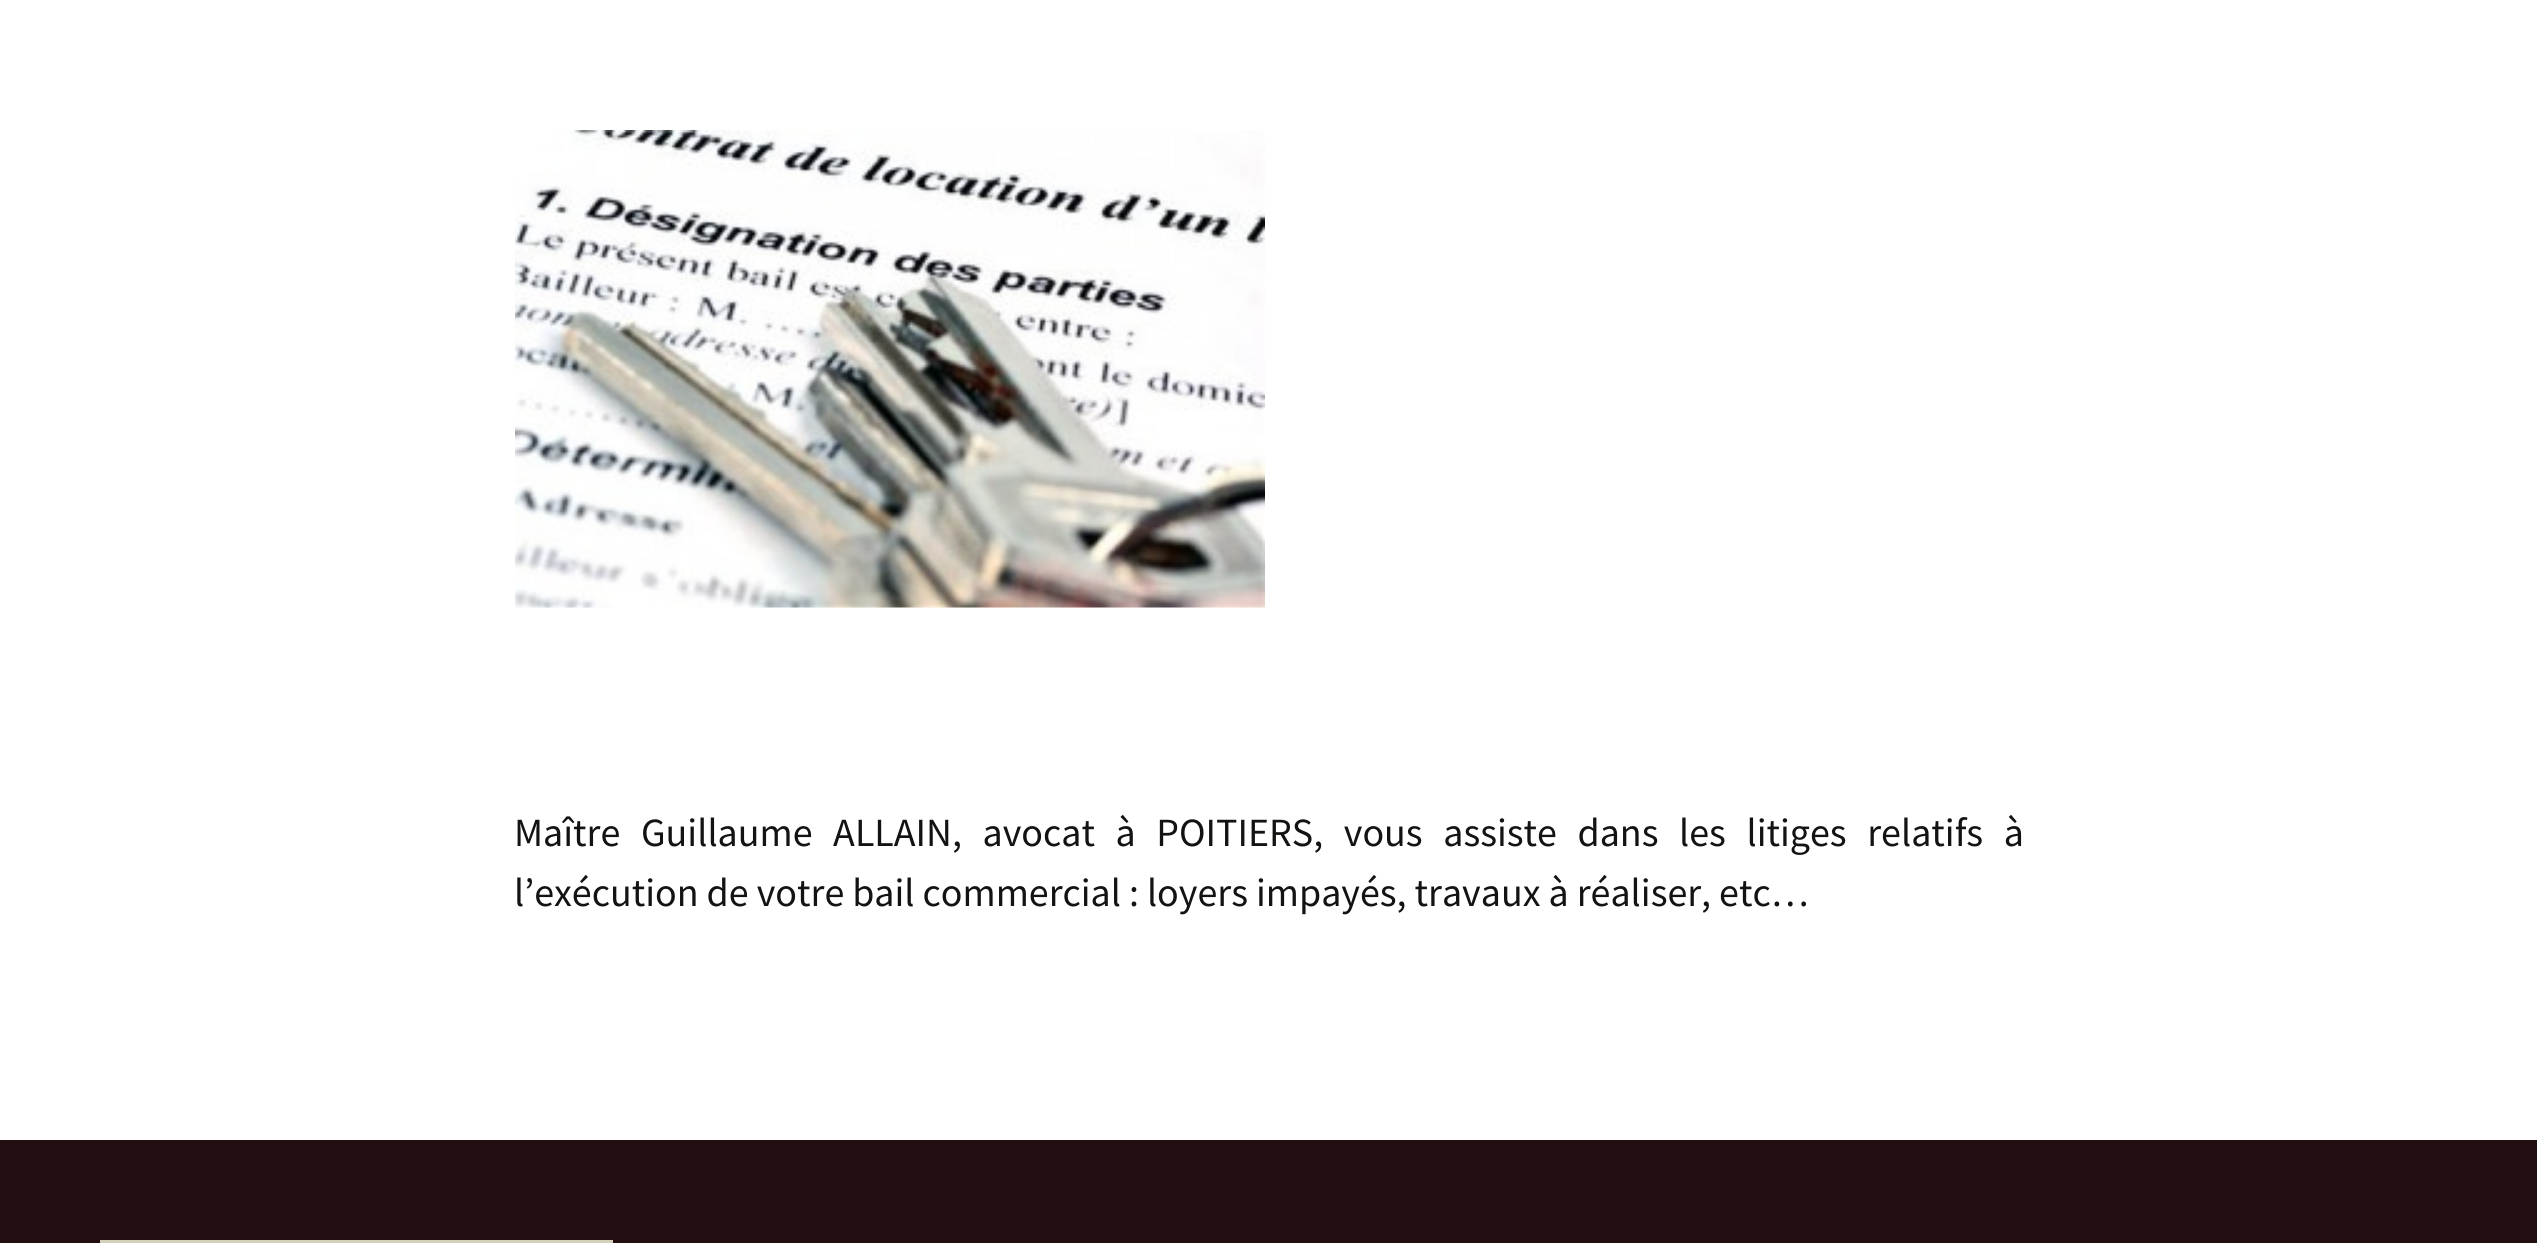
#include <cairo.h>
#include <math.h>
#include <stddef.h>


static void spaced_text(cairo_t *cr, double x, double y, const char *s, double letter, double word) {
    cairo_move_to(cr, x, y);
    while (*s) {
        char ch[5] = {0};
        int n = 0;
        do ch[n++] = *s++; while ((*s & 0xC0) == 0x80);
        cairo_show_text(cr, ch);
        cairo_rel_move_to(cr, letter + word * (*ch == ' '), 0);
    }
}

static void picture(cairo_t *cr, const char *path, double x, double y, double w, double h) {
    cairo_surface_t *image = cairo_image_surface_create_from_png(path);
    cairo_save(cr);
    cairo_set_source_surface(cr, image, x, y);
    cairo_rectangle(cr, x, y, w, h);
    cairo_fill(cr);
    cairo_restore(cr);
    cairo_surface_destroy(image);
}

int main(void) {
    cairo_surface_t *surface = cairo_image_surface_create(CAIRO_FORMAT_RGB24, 2537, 1243);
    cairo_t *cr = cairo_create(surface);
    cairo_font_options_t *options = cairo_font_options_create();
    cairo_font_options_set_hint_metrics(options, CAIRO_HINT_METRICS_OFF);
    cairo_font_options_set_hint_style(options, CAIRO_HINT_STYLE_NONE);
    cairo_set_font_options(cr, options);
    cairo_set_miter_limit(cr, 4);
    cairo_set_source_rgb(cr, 1, 1, 1);
    cairo_paint(cr);
    picture(cr, "img1.png", 515, 130, 750, 478);
    cairo_select_font_face(cr, "Source Sans Pro", CAIRO_FONT_SLANT_NORMAL, CAIRO_FONT_WEIGHT_NORMAL);
    cairo_set_font_size(cr, 40);
    cairo_set_source_rgb(cr, 0.078, 0.078, 0.071);
    spaced_text(cr, 514, 846, "Maître Guillaume ALLAIN, avocat à POITIERS, vous assiste dans les litiges relatifs à", 0, 12.6);
    cairo_move_to(cr, 514, 906);
    cairo_show_text(cr, "l’exécution de votre bail commercial : loyers impayés, travaux à réaliser, etc…");
    cairo_set_source_rgb(cr, 0.133, 0.055, 0.063);
    cairo_rectangle(cr, 0, 1140, 2537, 103);
    cairo_fill(cr);
    cairo_rectangle(cr, 102.5, 1242.5, 508, 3);
    cairo_set_source_rgb(cr, 0.831, 0.816, 0.729);
    cairo_set_line_width(cr, 5);
    cairo_stroke(cr);
    cairo_surface_write_to_png(surface, "page.png");
    cairo_font_options_destroy(options);
    cairo_destroy(cr);
    cairo_surface_destroy(surface);
    return 0;
}
